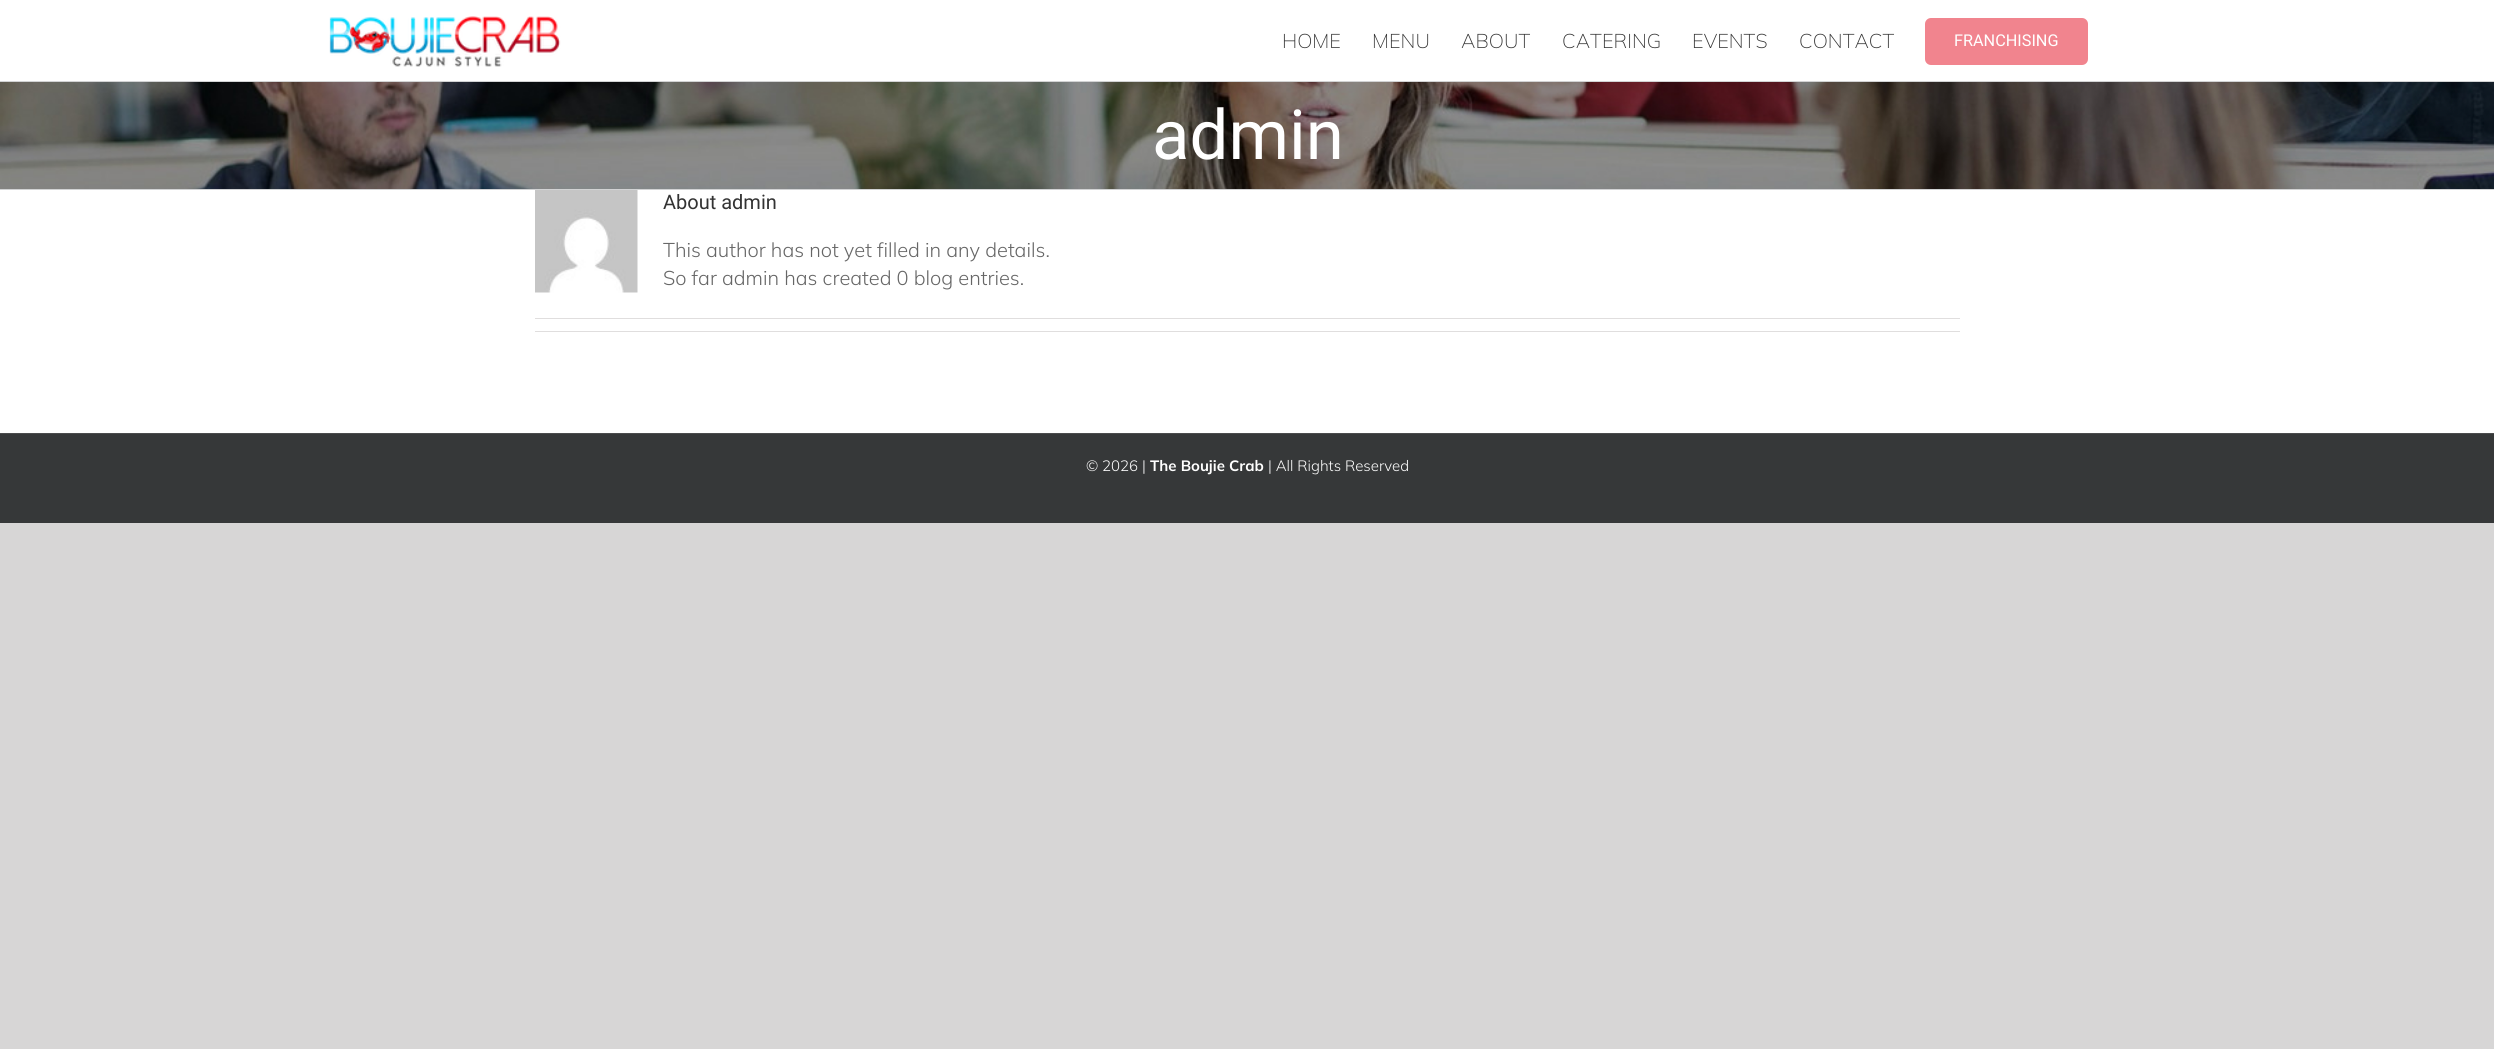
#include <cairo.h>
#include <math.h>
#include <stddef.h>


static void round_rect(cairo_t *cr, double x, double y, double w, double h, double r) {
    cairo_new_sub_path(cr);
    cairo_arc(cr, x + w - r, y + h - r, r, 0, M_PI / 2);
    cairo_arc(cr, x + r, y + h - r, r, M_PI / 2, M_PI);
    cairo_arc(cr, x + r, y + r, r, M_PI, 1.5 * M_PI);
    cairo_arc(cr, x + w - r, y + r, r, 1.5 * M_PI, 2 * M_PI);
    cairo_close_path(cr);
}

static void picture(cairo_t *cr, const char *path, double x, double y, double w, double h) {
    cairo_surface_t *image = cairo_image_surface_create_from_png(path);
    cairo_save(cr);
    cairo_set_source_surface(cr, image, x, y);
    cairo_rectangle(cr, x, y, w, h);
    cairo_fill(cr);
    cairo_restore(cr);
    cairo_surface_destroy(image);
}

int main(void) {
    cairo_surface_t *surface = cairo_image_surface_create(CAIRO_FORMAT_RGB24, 2494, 1049);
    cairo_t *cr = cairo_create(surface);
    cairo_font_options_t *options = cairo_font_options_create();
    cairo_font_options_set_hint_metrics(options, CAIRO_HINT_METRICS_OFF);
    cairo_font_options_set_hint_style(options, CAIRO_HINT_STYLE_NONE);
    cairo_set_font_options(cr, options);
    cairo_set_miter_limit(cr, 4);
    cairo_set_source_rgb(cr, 0.843, 0.839, 0.839);
    cairo_paint(cr);
    cairo_set_source_rgb(cr, 1, 1, 1);
    cairo_rectangle(cr, 0, 0, 2494, 433);
    cairo_fill(cr);
    picture(cr, "img1.png", 329, 16, 232, 51);
    cairo_select_font_face(cr, "Mulish ExtraLight", CAIRO_FONT_SLANT_NORMAL, CAIRO_FONT_WEIGHT_NORMAL);
    cairo_set_font_size(cr, 20);
    cairo_set_source_rgb(cr, 0.2, 0.2, 0.2);
    cairo_move_to(cr, 1282, 48);
    cairo_show_text(cr, "HOME");
    cairo_move_to(cr, 1372, 48);
    cairo_show_text(cr, "MENU");
    cairo_move_to(cr, 1461, 48);
    cairo_show_text(cr, "ABOUT");
    cairo_move_to(cr, 1562, 48);
    cairo_show_text(cr, "CATERING");
    cairo_move_to(cr, 1692, 48);
    cairo_show_text(cr, "EVENTS");
    cairo_move_to(cr, 1799, 48);
    cairo_show_text(cr, "CONTACT");
    cairo_set_source_rgb(cr, 0.945, 0.518, 0.557);
    round_rect(cr, 1925, 18, 163, 47, 6);
    cairo_fill(cr);
    cairo_select_font_face(cr, "Roboto", CAIRO_FONT_SLANT_NORMAL, CAIRO_FONT_WEIGHT_NORMAL);
    cairo_set_font_size(cr, 16.25);
    cairo_set_source_rgb(cr, 1, 1, 1);
    cairo_move_to(cr, 1954, 46);
    cairo_show_text(cr, "FRANCHISING");
    picture(cr, "img2.png", 0, 82, 2494, 107);
    cairo_set_source_rgb(cr, 0.824, 0.827, 0.831);
    cairo_rectangle(cr, 0, 81, 2494, 1);
    cairo_fill(cr);
    cairo_rectangle(cr, 0, 189, 2494, 1);
    cairo_fill(cr);
    cairo_set_font_size(cr, 69);
    cairo_set_source_rgb(cr, 1, 1, 1);
    cairo_move_to(cr, 1152, 159);
    cairo_show_text(cr, "admin");
    picture(cr, "img3.png", 535, 190, 103, 103);
    cairo_set_font_size(cr, 20);
    cairo_set_source_rgb(cr, 0.2, 0.2, 0.2);
    cairo_move_to(cr, 663, 209);
    cairo_show_text(cr, "About admin");
    cairo_select_font_face(cr, "Mulish Light", CAIRO_FONT_SLANT_NORMAL, CAIRO_FONT_WEIGHT_NORMAL);
    cairo_set_source_rgb(cr, 0.4, 0.4, 0.4);
    cairo_move_to(cr, 663, 257);
    cairo_show_text(cr, "This author has not yet filled in any details.");
    cairo_move_to(cr, 663, 285);
    cairo_show_text(cr, "So far admin has created 0 blog entries.");
    cairo_set_source_rgb(cr, 0.878, 0.871, 0.871);
    cairo_rectangle(cr, 535, 318, 1425, 1);
    cairo_fill(cr);
    cairo_rectangle(cr, 535, 331, 1425, 1);
    cairo_fill(cr);
    cairo_set_source_rgb(cr, 0.212, 0.22, 0.224);
    cairo_rectangle(cr, 0, 434, 2494, 89);
    cairo_fill(cr);
    cairo_set_source_rgb(cr, 0.294, 0.298, 0.302);
    cairo_rectangle(cr, 0, 433, 2494, 1);
    cairo_fill(cr);
    cairo_set_font_size(cr, 15);
    cairo_set_source_rgb(cr, 1, 1, 1);
    cairo_move_to(cr, 1086, 471);
    cairo_show_text(cr, "© 2026 |");
    cairo_select_font_face(cr, "Mulish", CAIRO_FONT_SLANT_NORMAL, CAIRO_FONT_WEIGHT_BOLD);
    cairo_move_to(cr, 1150, 471);
    cairo_show_text(cr, "The Boujie Crab");
    cairo_select_font_face(cr, "Mulish Light", CAIRO_FONT_SLANT_NORMAL, CAIRO_FONT_WEIGHT_NORMAL);
    cairo_move_to(cr, 1268, 471);
    cairo_show_text(cr, "| All Rights Reserved");
    cairo_surface_write_to_png(surface, "page.png");
    cairo_font_options_destroy(options);
    cairo_destroy(cr);
    cairo_surface_destroy(surface);
    return 0;
}
